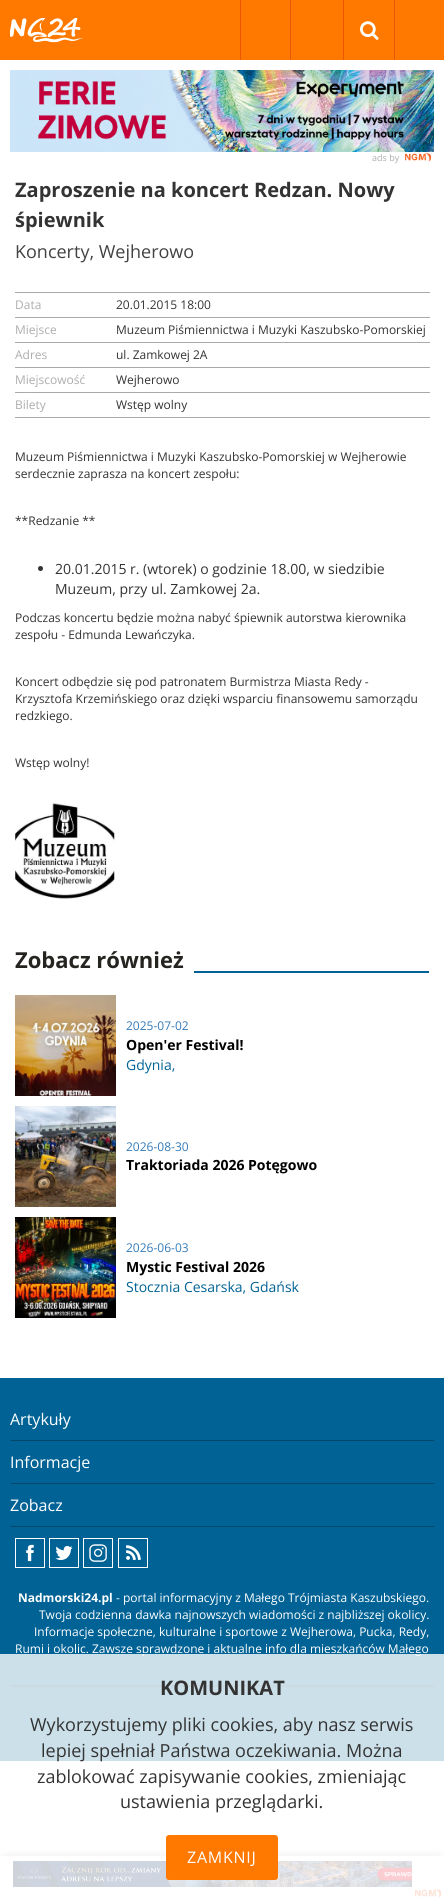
#include <cairo.h>
#include <math.h>
#include <stddef.h>


static void spaced_text(cairo_t *cr, double x, double y, const char *s, double letter, double word) {
    cairo_move_to(cr, x, y);
    while (*s) {
        char ch[5] = {0};
        int n = 0;
        do ch[n++] = *s++; while ((*s & 0xC0) == 0x80);
        cairo_show_text(cr, ch);
        cairo_rel_move_to(cr, letter + word * (*ch == ' '), 0);
    }
}

static void round_rect(cairo_t *cr, double x, double y, double w, double h, double r) {
    cairo_new_sub_path(cr);
    cairo_arc(cr, x + w - r, y + h - r, r, 0, M_PI / 2);
    cairo_arc(cr, x + r, y + h - r, r, M_PI / 2, M_PI);
    cairo_arc(cr, x + r, y + r, r, M_PI, 1.5 * M_PI);
    cairo_arc(cr, x + w - r, y + r, r, 1.5 * M_PI, 2 * M_PI);
    cairo_close_path(cr);
}

static void shadow(cairo_t *cr, double x, double y, double w, double h, double r, double blur, double alpha) {
    cairo_push_group_with_content(cr, CAIRO_CONTENT_ALPHA);
    cairo_set_operator(cr, CAIRO_OPERATOR_SOURCE);
    for (int i = 15; i >= -15 && fmin(w, h) + blur * i / 3 > 0; i -= 2) {
        double e = blur * i / 6;
        cairo_set_source_rgba(cr, 0, 0, 0, alpha * erfc((i - 1) / 8.5) / 2);
        round_rect(cr, x - e, y - e, w + 2 * e, h + 2 * e, fmax(0, fmin(r + e + blur * .6, fmin(w, h) / 2 + e)));
        cairo_fill(cr);
    }
    cairo_pattern_t *soft = cairo_pop_group(cr);
    cairo_mask(cr, soft);
    cairo_pattern_destroy(soft);
}

static void picture(cairo_t *cr, const char *path, double x, double y, double w, double h) {
    cairo_surface_t *image = cairo_image_surface_create_from_png(path);
    cairo_save(cr);
    cairo_set_source_surface(cr, image, x, y);
    cairo_rectangle(cr, x, y, w, h);
    cairo_fill(cr);
    cairo_restore(cr);
    cairo_surface_destroy(image);
}

int main(void) {
    cairo_surface_t *surface = cairo_image_surface_create(CAIRO_FORMAT_RGB24, 444, 1900);
    cairo_t *cr = cairo_create(surface);
    cairo_font_options_t *options = cairo_font_options_create();
    cairo_font_options_set_hint_metrics(options, CAIRO_HINT_METRICS_OFF);
    cairo_font_options_set_hint_style(options, CAIRO_HINT_STYLE_NONE);
    cairo_set_font_options(cr, options);
    cairo_set_miter_limit(cr, 4);
    cairo_set_source_rgb(cr, 1, 1, 1);
    cairo_paint(cr);
    cairo_set_source_rgb(cr, 1, 0.471, 0);
    cairo_rectangle(cr, 0, 0, 444, 60);
    cairo_fill(cr);
    cairo_set_source_rgb(cr, 0.918, 0.341, 0.024);
    cairo_rectangle(cr, 240, 0, 1, 60);
    cairo_fill(cr);
    cairo_rectangle(cr, 290, 0, 1, 60);
    cairo_fill(cr);
    cairo_rectangle(cr, 394, 0, 1, 60);
    cairo_fill(cr);
    picture(cr, "img1.png", 10, 18, 73, 25);
    cairo_rectangle(cr, 343, 0, 1, 60);
    cairo_fill(cr);
    picture(cr, "img2.png", 360, 21, 19, 19);
    picture(cr, "img3.png", 10, 70, 424, 82);
    cairo_select_font_face(cr, "Open Sans", CAIRO_FONT_SLANT_NORMAL, CAIRO_FONT_WEIGHT_NORMAL);
    cairo_set_font_size(cr, 9);
    cairo_set_source_rgb(cr, 0.678, 0.678, 0.678);
    cairo_move_to(cr, 372, 161);
    cairo_show_text(cr, "ads by");
    picture(cr, "img4.png", 405, 152, 27, 10);
    cairo_select_font_face(cr, "Open Sans", CAIRO_FONT_SLANT_NORMAL, CAIRO_FONT_WEIGHT_BOLD);
    cairo_set_font_size(cr, 20);
    cairo_set_source_rgb(cr, 0.2, 0.2, 0.2);
    cairo_move_to(cr, 15, 197);
    cairo_show_text(cr, "Zaproszenie na koncert Redzan. Nowy");
    cairo_move_to(cr, 15, 227);
    cairo_show_text(cr, "śpiewnik");
    cairo_select_font_face(cr, "Open Sans", CAIRO_FONT_SLANT_NORMAL, CAIRO_FONT_WEIGHT_NORMAL);
    cairo_set_font_size(cr, 18);
    cairo_set_source_rgb(cr, 0.259, 0.259, 0.259);
    cairo_move_to(cr, 15, 258);
    cairo_show_text(cr, "Koncerty, Wejherowo");
    cairo_set_source_rgb(cr, 0.667, 0.667, 0.667);
    cairo_rectangle(cr, 15, 292, 415, 1);
    cairo_fill(cr);
    cairo_set_font_size(cr, 12);
    cairo_set_source_rgb(cr, 0.678, 0.678, 0.678);
    cairo_move_to(cr, 15, 309);
    cairo_show_text(cr, "Data");
    cairo_set_source_rgb(cr, 0.2, 0.2, 0.2);
    cairo_move_to(cr, 116, 309);
    cairo_show_text(cr, "20.01.2015 18:00");
    cairo_set_source_rgb(cr, 0.667, 0.667, 0.667);
    cairo_rectangle(cr, 15, 317, 415, 1);
    cairo_fill(cr);
    cairo_set_source_rgb(cr, 0.678, 0.678, 0.678);
    cairo_move_to(cr, 15, 334);
    cairo_show_text(cr, "Miejsce");
    cairo_set_source_rgb(cr, 0.2, 0.2, 0.2);
    cairo_move_to(cr, 116, 334);
    cairo_show_text(cr, "Muzeum Piśmiennictwa i Muzyki Kaszubsko-Pomorskiej");
    cairo_set_source_rgb(cr, 0.667, 0.667, 0.667);
    cairo_rectangle(cr, 15, 342, 415, 1);
    cairo_fill(cr);
    cairo_set_source_rgb(cr, 0.678, 0.678, 0.678);
    cairo_move_to(cr, 15, 359);
    cairo_show_text(cr, "Adres");
    cairo_set_source_rgb(cr, 0.2, 0.2, 0.2);
    cairo_move_to(cr, 116, 359);
    cairo_show_text(cr, "ul. Zamkowej 2A");
    cairo_set_source_rgb(cr, 0.667, 0.667, 0.667);
    cairo_rectangle(cr, 15, 367, 415, 1);
    cairo_fill(cr);
    cairo_set_source_rgb(cr, 0.678, 0.678, 0.678);
    cairo_move_to(cr, 15, 384);
    cairo_show_text(cr, "Miejscowość");
    cairo_set_source_rgb(cr, 0.2, 0.2, 0.2);
    cairo_move_to(cr, 116, 384);
    cairo_show_text(cr, "Wejherowo");
    cairo_set_source_rgb(cr, 0.667, 0.667, 0.667);
    cairo_rectangle(cr, 15, 392, 415, 1);
    cairo_fill(cr);
    cairo_rectangle(cr, 15, 417, 415, 1);
    cairo_fill(cr);
    cairo_set_source_rgb(cr, 0.678, 0.678, 0.678);
    cairo_move_to(cr, 15, 409);
    cairo_show_text(cr, "Bilety");
    cairo_set_source_rgb(cr, 0.2, 0.2, 0.2);
    cairo_move_to(cr, 116, 409);
    cairo_show_text(cr, "Wstęp wolny");
    cairo_move_to(cr, 15, 461);
    cairo_show_text(cr, "Muzeum Piśmiennictwa i Muzyki Kaszubsko-Pomorskiej w Wejherowie");
    cairo_move_to(cr, 15, 478);
    cairo_show_text(cr, "serdecznie zaprasza na koncert zespołu:");
    cairo_move_to(cr, 15, 525);
    cairo_show_text(cr, "**Redzanie **");
    cairo_new_path(cr);
    cairo_arc(cr, 40.5, 568.5, 2.5, 0, 2 * M_PI);
    cairo_fill(cr);
    cairo_set_font_size(cr, 14);
    cairo_move_to(cr, 55, 574);
    cairo_show_text(cr, "20.01.2015 r. (wtorek) o godzinie 18.00, w siedzibie");
    cairo_move_to(cr, 55, 594);
    cairo_show_text(cr, "Muzeum, przy ul. Zamkowej 2a.");
    cairo_set_font_size(cr, 12);
    cairo_move_to(cr, 15, 622);
    cairo_show_text(cr, "Podczas koncertu będzie można nabyć śpiewnik autorstwa kierownika");
    cairo_move_to(cr, 15, 639);
    cairo_show_text(cr, "zespołu - Edmunda Lewańczyka.");
    cairo_move_to(cr, 15, 686);
    cairo_show_text(cr, "Koncert odbędzie się pod patronatem Burmistrza Miasta Redy -");
    cairo_move_to(cr, 15, 703);
    cairo_show_text(cr, "Krzysztofa Krzemińskiego oraz dzięki wsparciu finansowemu samorządu");
    cairo_move_to(cr, 15, 720);
    cairo_show_text(cr, "redzkiego.");
    cairo_move_to(cr, 15, 767);
    cairo_show_text(cr, "Wstęp wolny!");
    picture(cr, "img5.png", 15, 803, 100, 96);
    cairo_select_font_face(cr, "Open Sans", CAIRO_FONT_SLANT_NORMAL, CAIRO_FONT_WEIGHT_BOLD);
    cairo_set_font_size(cr, 22);
    cairo_set_source_rgb(cr, 0.145, 0.141, 0.129);
    cairo_move_to(cr, 15, 968);
    cairo_show_text(cr, "Zobacz również");
    cairo_set_source_rgb(cr, 0, 0.384, 0.584);
    cairo_rectangle(cr, 194, 971, 235, 2);
    cairo_fill(cr);
    picture(cr, "img6.png", 15, 995, 101, 101);
    cairo_select_font_face(cr, "Open Sans", CAIRO_FONT_SLANT_NORMAL, CAIRO_FONT_WEIGHT_NORMAL);
    cairo_set_font_size(cr, 12);
    cairo_set_source_rgb(cr, 0.2, 0.478, 0.718);
    cairo_move_to(cr, 126, 1030);
    cairo_show_text(cr, "2025-07-02");
    cairo_select_font_face(cr, "Open Sans", CAIRO_FONT_SLANT_NORMAL, CAIRO_FONT_WEIGHT_BOLD);
    cairo_set_font_size(cr, 14);
    cairo_set_source_rgb(cr, 0, 0, 0);
    cairo_move_to(cr, 126, 1050);
    cairo_show_text(cr, "Open'er Festival!");
    cairo_select_font_face(cr, "Open Sans", CAIRO_FONT_SLANT_NORMAL, CAIRO_FONT_WEIGHT_NORMAL);
    cairo_set_source_rgb(cr, 0, 0.384, 0.584);
    cairo_move_to(cr, 126, 1070);
    cairo_show_text(cr, "Gdynia,");
    picture(cr, "img7.png", 15, 1106, 101, 101);
    cairo_set_font_size(cr, 12);
    cairo_set_source_rgb(cr, 0.2, 0.478, 0.718);
    cairo_move_to(cr, 126, 1151);
    cairo_show_text(cr, "2026-08-30");
    cairo_select_font_face(cr, "Open Sans", CAIRO_FONT_SLANT_NORMAL, CAIRO_FONT_WEIGHT_BOLD);
    cairo_set_font_size(cr, 14);
    cairo_set_source_rgb(cr, 0, 0, 0);
    cairo_move_to(cr, 126, 1170);
    cairo_show_text(cr, "Traktoriada 2026 Potęgowo");
    picture(cr, "img8.png", 15, 1217, 101, 101);
    cairo_select_font_face(cr, "Open Sans", CAIRO_FONT_SLANT_NORMAL, CAIRO_FONT_WEIGHT_NORMAL);
    cairo_set_font_size(cr, 12);
    cairo_set_source_rgb(cr, 0.2, 0.478, 0.718);
    cairo_move_to(cr, 126, 1252);
    cairo_show_text(cr, "2026-06-03");
    cairo_select_font_face(cr, "Open Sans", CAIRO_FONT_SLANT_NORMAL, CAIRO_FONT_WEIGHT_BOLD);
    cairo_set_font_size(cr, 14);
    cairo_set_source_rgb(cr, 0, 0, 0);
    cairo_move_to(cr, 126, 1272);
    cairo_show_text(cr, "Mystic Festival 2026");
    cairo_select_font_face(cr, "Open Sans", CAIRO_FONT_SLANT_NORMAL, CAIRO_FONT_WEIGHT_NORMAL);
    cairo_set_source_rgb(cr, 0, 0.384, 0.584);
    cairo_move_to(cr, 126, 1292);
    cairo_show_text(cr, "Stocznia Cesarska, Gdańsk");
    cairo_rectangle(cr, 0, 1378, 444, 383);
    cairo_fill(cr);
    cairo_set_source_rgb(cr, 0, 0.278, 0.424);
    cairo_rectangle(cr, 10, 1440, 424, 1);
    cairo_fill(cr);
    cairo_set_font_size(cr, 16);
    cairo_set_source_rgb(cr, 1, 1, 1);
    cairo_move_to(cr, 10, 1425);
    cairo_show_text(cr, "Artykuły");
    cairo_set_source_rgb(cr, 0, 0.278, 0.424);
    cairo_rectangle(cr, 10, 1483, 424, 1);
    cairo_fill(cr);
    cairo_set_source_rgb(cr, 1, 1, 1);
    cairo_move_to(cr, 10, 1468);
    cairo_show_text(cr, "Informacje");
    cairo_set_source_rgb(cr, 0, 0.278, 0.424);
    cairo_rectangle(cr, 10, 1526, 424, 1);
    cairo_fill(cr);
    cairo_set_source_rgb(cr, 1, 1, 1);
    cairo_move_to(cr, 10, 1511);
    cairo_show_text(cr, "Zobacz");
    cairo_set_source_rgb(cr, 0, 0.278, 0.424);
    cairo_rectangle(cr, 10, 1685, 424, 2);
    cairo_fill(cr);
    picture(cr, "img9.png", 15, 1538, 30, 30);
    picture(cr, "img10.png", 49, 1538, 30, 30);
    picture(cr, "img11.png", 83, 1538, 30, 30);
    picture(cr, "img12.png", 118, 1538, 30, 30);
    cairo_select_font_face(cr, "Open Sans", CAIRO_FONT_SLANT_NORMAL, CAIRO_FONT_WEIGHT_BOLD);
    cairo_set_font_size(cr, 12);
    cairo_set_source_rgb(cr, 1, 1, 1);
    cairo_move_to(cr, 18, 1602);
    cairo_show_text(cr, "Nadmorski24.pl");
    cairo_select_font_face(cr, "Open Sans", CAIRO_FONT_SLANT_NORMAL, CAIRO_FONT_WEIGHT_NORMAL);
    cairo_move_to(cr, 116, 1602);
    cairo_show_text(cr, "- portal informacyjny z Małego Trójmiasta Kaszubskiego.");
    cairo_move_to(cr, 39, 1619);
    cairo_show_text(cr, "Twoja codzienna dawka najnowszych wiadomości z najbliższej okolicy.");
    cairo_move_to(cr, 34, 1636);
    cairo_show_text(cr, "Informacje społeczne, kulturalne i sportowe z Wejherowa, Pucka, Redy,");
    cairo_move_to(cr, 15, 1653);
    cairo_show_text(cr, "Rumi i okolic. Zawsze sprawdzone i aktualne info dla mieszkańców Małego");
    cairo_save(cr);
    cairo_rectangle(cr, 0, 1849, 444, 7);
    cairo_clip(cr);
    cairo_set_source_rgb(cr, 0, 0, 0);
    shadow(cr, 5, 1861, 434, 34, 0, 6, 1);
    cairo_restore(cr);
    picture(cr, "img13.png", 13, 1861, 399, 26);
    picture(cr, "img14.png", 415, 1889, 27, 9);
    cairo_set_source_rgba(cr, 1, 1, 1, 0.8);
    cairo_rectangle(cr, 0, 1654, 444, 244);
    cairo_fill(cr);
    cairo_set_source_rgb(cr, 0, 0.384, 0.584);
    cairo_rectangle(cr, 25, 1653, 401, 1);
    cairo_fill(cr);
    cairo_select_font_face(cr, "Open Sans", CAIRO_FONT_SLANT_NORMAL, CAIRO_FONT_WEIGHT_BOLD);
    cairo_set_font_size(cr, 20);
    cairo_set_source_rgb(cr, 0.2, 0.2, 0.2);
    cairo_move_to(cr, 160, 1695);
    cairo_show_text(cr, "KOMUNIKAT");
    cairo_select_font_face(cr, "Open Sans", CAIRO_FONT_SLANT_NORMAL, CAIRO_FONT_WEIGHT_NORMAL);
    cairo_set_font_size(cr, 18);
    cairo_move_to(cr, 30, 1731);
    cairo_show_text(cr, "Wykorzystujemy pliki cookies, aby nasz serwis");
    cairo_move_to(cr, 41, 1757);
    cairo_show_text(cr, "lepiej spełniał Państwa oczekiwania. Można");
    cairo_move_to(cr, 37, 1783);
    cairo_show_text(cr, "zablokować zapisywanie cookies, zmieniając");
    cairo_move_to(cr, 120, 1808);
    cairo_show_text(cr, "ustawienia przeglądarki.");
    cairo_set_source_rgb(cr, 1, 0.471, 0);
    round_rect(cr, 166, 1835, 112, 45, 3);
    cairo_fill(cr);
    cairo_set_font_size(cr, 16);
    cairo_set_source_rgb(cr, 1, 1, 1);
    spaced_text(cr, 187, 1863, "ZAMKNIJ", 0.75, 0);
    cairo_surface_write_to_png(surface, "page.png");
    cairo_font_options_destroy(options);
    cairo_destroy(cr);
    cairo_surface_destroy(surface);
    return 0;
}
